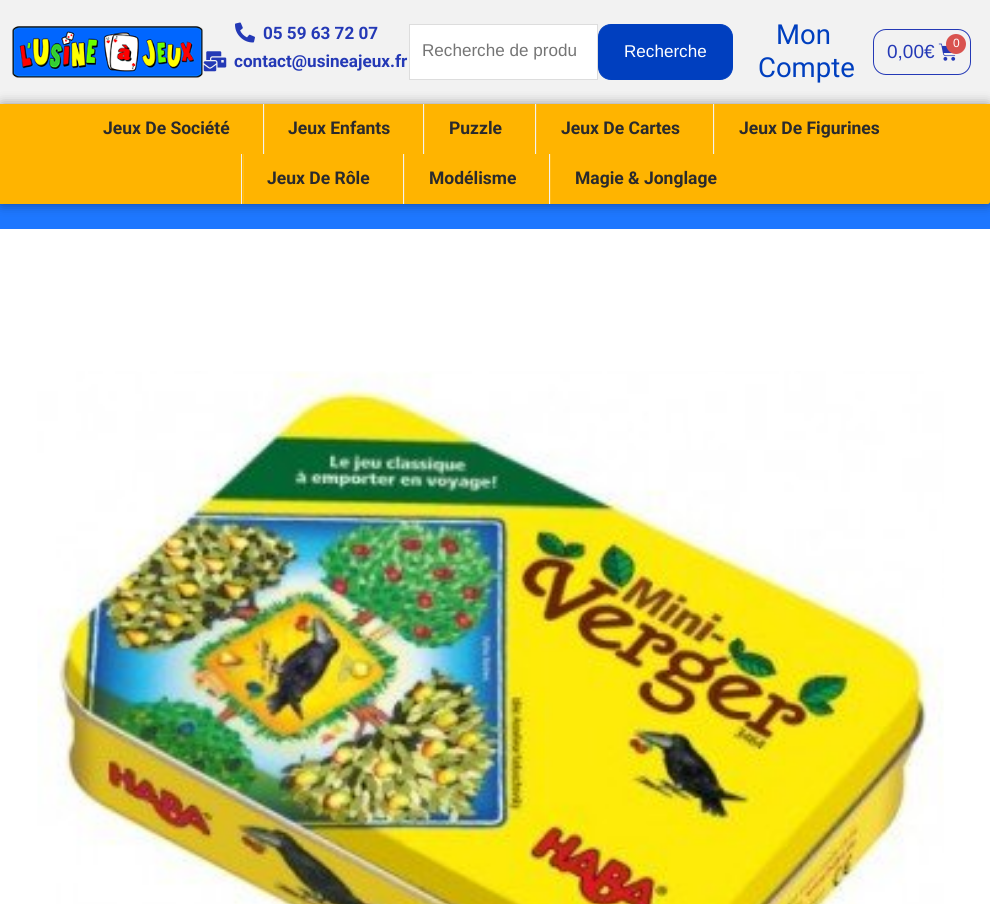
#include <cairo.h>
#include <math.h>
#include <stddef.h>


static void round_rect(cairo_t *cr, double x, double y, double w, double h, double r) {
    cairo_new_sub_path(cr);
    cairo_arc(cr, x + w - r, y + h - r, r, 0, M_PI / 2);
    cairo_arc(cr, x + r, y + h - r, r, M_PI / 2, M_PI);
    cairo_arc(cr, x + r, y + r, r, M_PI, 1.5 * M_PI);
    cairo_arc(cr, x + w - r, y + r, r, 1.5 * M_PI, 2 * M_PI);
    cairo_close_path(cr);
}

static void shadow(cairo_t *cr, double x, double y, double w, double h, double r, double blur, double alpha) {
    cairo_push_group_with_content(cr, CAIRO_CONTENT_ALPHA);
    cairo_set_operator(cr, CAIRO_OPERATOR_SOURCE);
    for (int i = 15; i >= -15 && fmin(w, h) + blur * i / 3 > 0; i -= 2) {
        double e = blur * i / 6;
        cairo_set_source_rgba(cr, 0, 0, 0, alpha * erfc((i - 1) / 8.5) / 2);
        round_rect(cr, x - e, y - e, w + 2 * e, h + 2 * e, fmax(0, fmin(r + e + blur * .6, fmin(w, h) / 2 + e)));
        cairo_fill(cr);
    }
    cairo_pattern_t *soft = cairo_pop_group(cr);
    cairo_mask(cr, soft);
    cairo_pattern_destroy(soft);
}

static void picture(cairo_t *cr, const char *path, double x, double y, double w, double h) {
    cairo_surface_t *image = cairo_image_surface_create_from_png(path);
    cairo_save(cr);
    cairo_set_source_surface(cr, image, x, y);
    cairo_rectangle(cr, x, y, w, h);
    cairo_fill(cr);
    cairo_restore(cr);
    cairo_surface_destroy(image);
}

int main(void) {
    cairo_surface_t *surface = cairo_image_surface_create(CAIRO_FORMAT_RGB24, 990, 904);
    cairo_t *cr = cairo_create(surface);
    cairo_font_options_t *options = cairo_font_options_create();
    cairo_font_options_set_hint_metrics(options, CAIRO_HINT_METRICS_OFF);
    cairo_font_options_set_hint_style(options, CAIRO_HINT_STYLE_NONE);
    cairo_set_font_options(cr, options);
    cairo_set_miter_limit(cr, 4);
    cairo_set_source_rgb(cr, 0.114, 0.467, 1);
    cairo_paint(cr);
    cairo_set_source_rgb(cr, 0.949, 0.949, 0.949);
    cairo_rectangle(cr, 0, 0, 990, 104);
    cairo_fill(cr);
    picture(cr, "img1.png", 12, 26, 191, 52);
    picture(cr, "img2.png", 235, 22, 20, 21);
    cairo_select_font_face(cr, "Roboto", CAIRO_FONT_SLANT_NORMAL, CAIRO_FONT_WEIGHT_BOLD);
    cairo_set_font_size(cr, 17.1);
    cairo_set_source_rgb(cr, 0.141, 0.224, 0.714);
    cairo_move_to(cr, 263, 39);
    cairo_show_text(cr, "05 59 63 72 07");
    picture(cr, "img3.png", 203, 51, 24, 21);
    cairo_move_to(cr, 234, 67);
    cairo_show_text(cr, "contact@usineajeux.fr");
    cairo_set_source_rgb(cr, 1, 1, 1);
    cairo_rectangle(cr, 409.5, 24.5, 188, 55);
    cairo_fill_preserve(cr);
    cairo_set_source_rgb(cr, 0.867, 0.867, 0.867);
    cairo_set_line_width(cr, 1);
    cairo_stroke(cr);
    cairo_select_font_face(cr, "Liberation Sans", CAIRO_FONT_SLANT_NORMAL, CAIRO_FONT_WEIGHT_NORMAL);
    cairo_set_source_rgb(cr, 0.459, 0.459, 0.459);
    cairo_move_to(cr, 422, 56);
    cairo_show_text(cr, "Recherche de produ");
    cairo_set_source_rgb(cr, 0, 0.247, 0.749);
    round_rect(cr, 598.5, 24.5, 134, 55, 12.5);
    cairo_fill_preserve(cr);
    cairo_stroke(cr);
    cairo_set_source_rgb(cr, 1, 1, 1);
    cairo_move_to(cr, 624, 57);
    cairo_show_text(cr, "Recherche");
    cairo_select_font_face(cr, "Roboto", CAIRO_FONT_SLANT_NORMAL, CAIRO_FONT_WEIGHT_NORMAL);
    cairo_set_font_size(cr, 27.5);
    cairo_set_source_rgb(cr, 0, 0.247, 0.749);
    cairo_move_to(cr, 776, 44);
    cairo_show_text(cr, "Mon");
    cairo_move_to(cr, 758, 77);
    cairo_show_text(cr, "Compte");
    round_rect(cr, 873.5, 29.5, 97, 45, 12.5);
    cairo_set_source_rgb(cr, 0.141, 0.224, 0.714);
    cairo_stroke(cr);
    picture(cr, "img4.png", 938, 43, 18, 18);
    cairo_set_source_rgb(cr, 0.851, 0.325, 0.31);
    cairo_arc(cr, 956, 44, 10, 0, 2 * M_PI);
    cairo_fill(cr);
    cairo_select_font_face(cr, "Liberation Sans", CAIRO_FONT_SLANT_NORMAL, CAIRO_FONT_WEIGHT_NORMAL);
    cairo_set_font_size(cr, 12);
    cairo_set_source_rgb(cr, 1, 1, 1);
    cairo_move_to(cr, 953, 47);
    cairo_show_text(cr, "0");
    cairo_set_font_size(cr, 19);
    cairo_set_source_rgb(cr, 0.141, 0.224, 0.714);
    cairo_move_to(cr, 887, 58);
    cairo_show_text(cr, "0,00€");
    cairo_set_source_rgb(cr, 0, 0, 0);
    shadow(cr, 0, 104, 990, 100, 2.5, 6, 0.39);
    cairo_set_source_rgb(cr, 1, 0.706, 0);
    cairo_new_path(cr);
    cairo_move_to(cr, 0, 104);
    cairo_line_to(cr, 990, 104);
    cairo_line_to(cr, 990, 201.5);
    cairo_curve_to(cr, 990, 203, 989, 204, 987.5, 204);
    cairo_line_to(cr, 0, 204);
    cairo_close_path(cr);
    cairo_fill(cr);
    cairo_select_font_face(cr, "Roboto", CAIRO_FONT_SLANT_NORMAL, CAIRO_FONT_WEIGHT_BOLD);
    cairo_set_font_size(cr, 17.5);
    cairo_set_source_rgb(cr, 0.165, 0.165, 0.173);
    cairo_move_to(cr, 103, 134);
    cairo_show_text(cr, "Jeux De Société");
    cairo_set_source_rgb(cr, 1, 0.737, 0.102);
    cairo_rectangle(cr, 264, 104, 1, 50);
    cairo_fill(cr);
    cairo_set_source_rgb(cr, 0.949, 0.949, 0.949);
    cairo_rectangle(cr, 263, 104, 1, 50);
    cairo_fill(cr);
    cairo_set_source_rgb(cr, 0.165, 0.165, 0.173);
    cairo_move_to(cr, 288, 134);
    cairo_show_text(cr, "Jeux Enfants");
    cairo_set_source_rgb(cr, 1, 0.737, 0.102);
    cairo_rectangle(cr, 424, 104, 1, 50);
    cairo_fill(cr);
    cairo_set_source_rgb(cr, 0.949, 0.949, 0.949);
    cairo_rectangle(cr, 423, 104, 1, 50);
    cairo_fill(cr);
    cairo_set_source_rgb(cr, 0.165, 0.165, 0.173);
    cairo_move_to(cr, 449, 134);
    cairo_show_text(cr, "Puzzle");
    cairo_set_source_rgb(cr, 1, 0.737, 0.102);
    cairo_rectangle(cr, 536, 104, 1, 50);
    cairo_fill(cr);
    cairo_set_source_rgb(cr, 0.949, 0.949, 0.949);
    cairo_rectangle(cr, 535, 104, 1, 50);
    cairo_fill(cr);
    cairo_set_source_rgb(cr, 0.165, 0.165, 0.173);
    cairo_move_to(cr, 561, 134);
    cairo_show_text(cr, "Jeux De Cartes");
    cairo_set_source_rgb(cr, 1, 0.737, 0.102);
    cairo_rectangle(cr, 714, 104, 1, 50);
    cairo_fill(cr);
    cairo_set_source_rgb(cr, 0.949, 0.949, 0.949);
    cairo_rectangle(cr, 713, 104, 1, 50);
    cairo_fill(cr);
    cairo_set_source_rgb(cr, 0.165, 0.165, 0.173);
    cairo_move_to(cr, 739, 134);
    cairo_show_text(cr, "Jeux De Figurines");
    cairo_set_source_rgb(cr, 1, 0.737, 0.102);
    cairo_rectangle(cr, 243, 154, 1, 50);
    cairo_fill(cr);
    cairo_set_source_rgb(cr, 0.949, 0.949, 0.949);
    cairo_rectangle(cr, 241, 154, 1, 50);
    cairo_fill(cr);
    cairo_set_source_rgb(cr, 0.165, 0.165, 0.173);
    cairo_move_to(cr, 267, 184);
    cairo_show_text(cr, "Jeux De Rôle");
    cairo_set_source_rgb(cr, 1, 0.737, 0.102);
    cairo_rectangle(cr, 404, 154, 1, 50);
    cairo_fill(cr);
    cairo_set_source_rgb(cr, 0.949, 0.949, 0.949);
    cairo_rectangle(cr, 403, 154, 1, 50);
    cairo_fill(cr);
    cairo_set_source_rgb(cr, 0.165, 0.165, 0.173);
    cairo_move_to(cr, 429, 184);
    cairo_show_text(cr, "Modélisme");
    cairo_set_source_rgb(cr, 1, 0.737, 0.102);
    cairo_rectangle(cr, 550, 154, 1, 50);
    cairo_fill(cr);
    cairo_set_source_rgb(cr, 0.949, 0.949, 0.949);
    cairo_rectangle(cr, 549, 154, 1, 50);
    cairo_fill(cr);
    cairo_set_source_rgb(cr, 0.165, 0.165, 0.173);
    cairo_move_to(cr, 575, 184);
    cairo_show_text(cr, "Magie & Jonglage");
    cairo_set_source_rgb(cr, 1, 1, 1);
    cairo_rectangle(cr, 0, 229, 990, 675);
    cairo_fill(cr);
    picture(cr, "img5.png", 37, 371, 907, 533);
    cairo_surface_write_to_png(surface, "page.png");
    cairo_font_options_destroy(options);
    cairo_destroy(cr);
    cairo_surface_destroy(surface);
    return 0;
}
